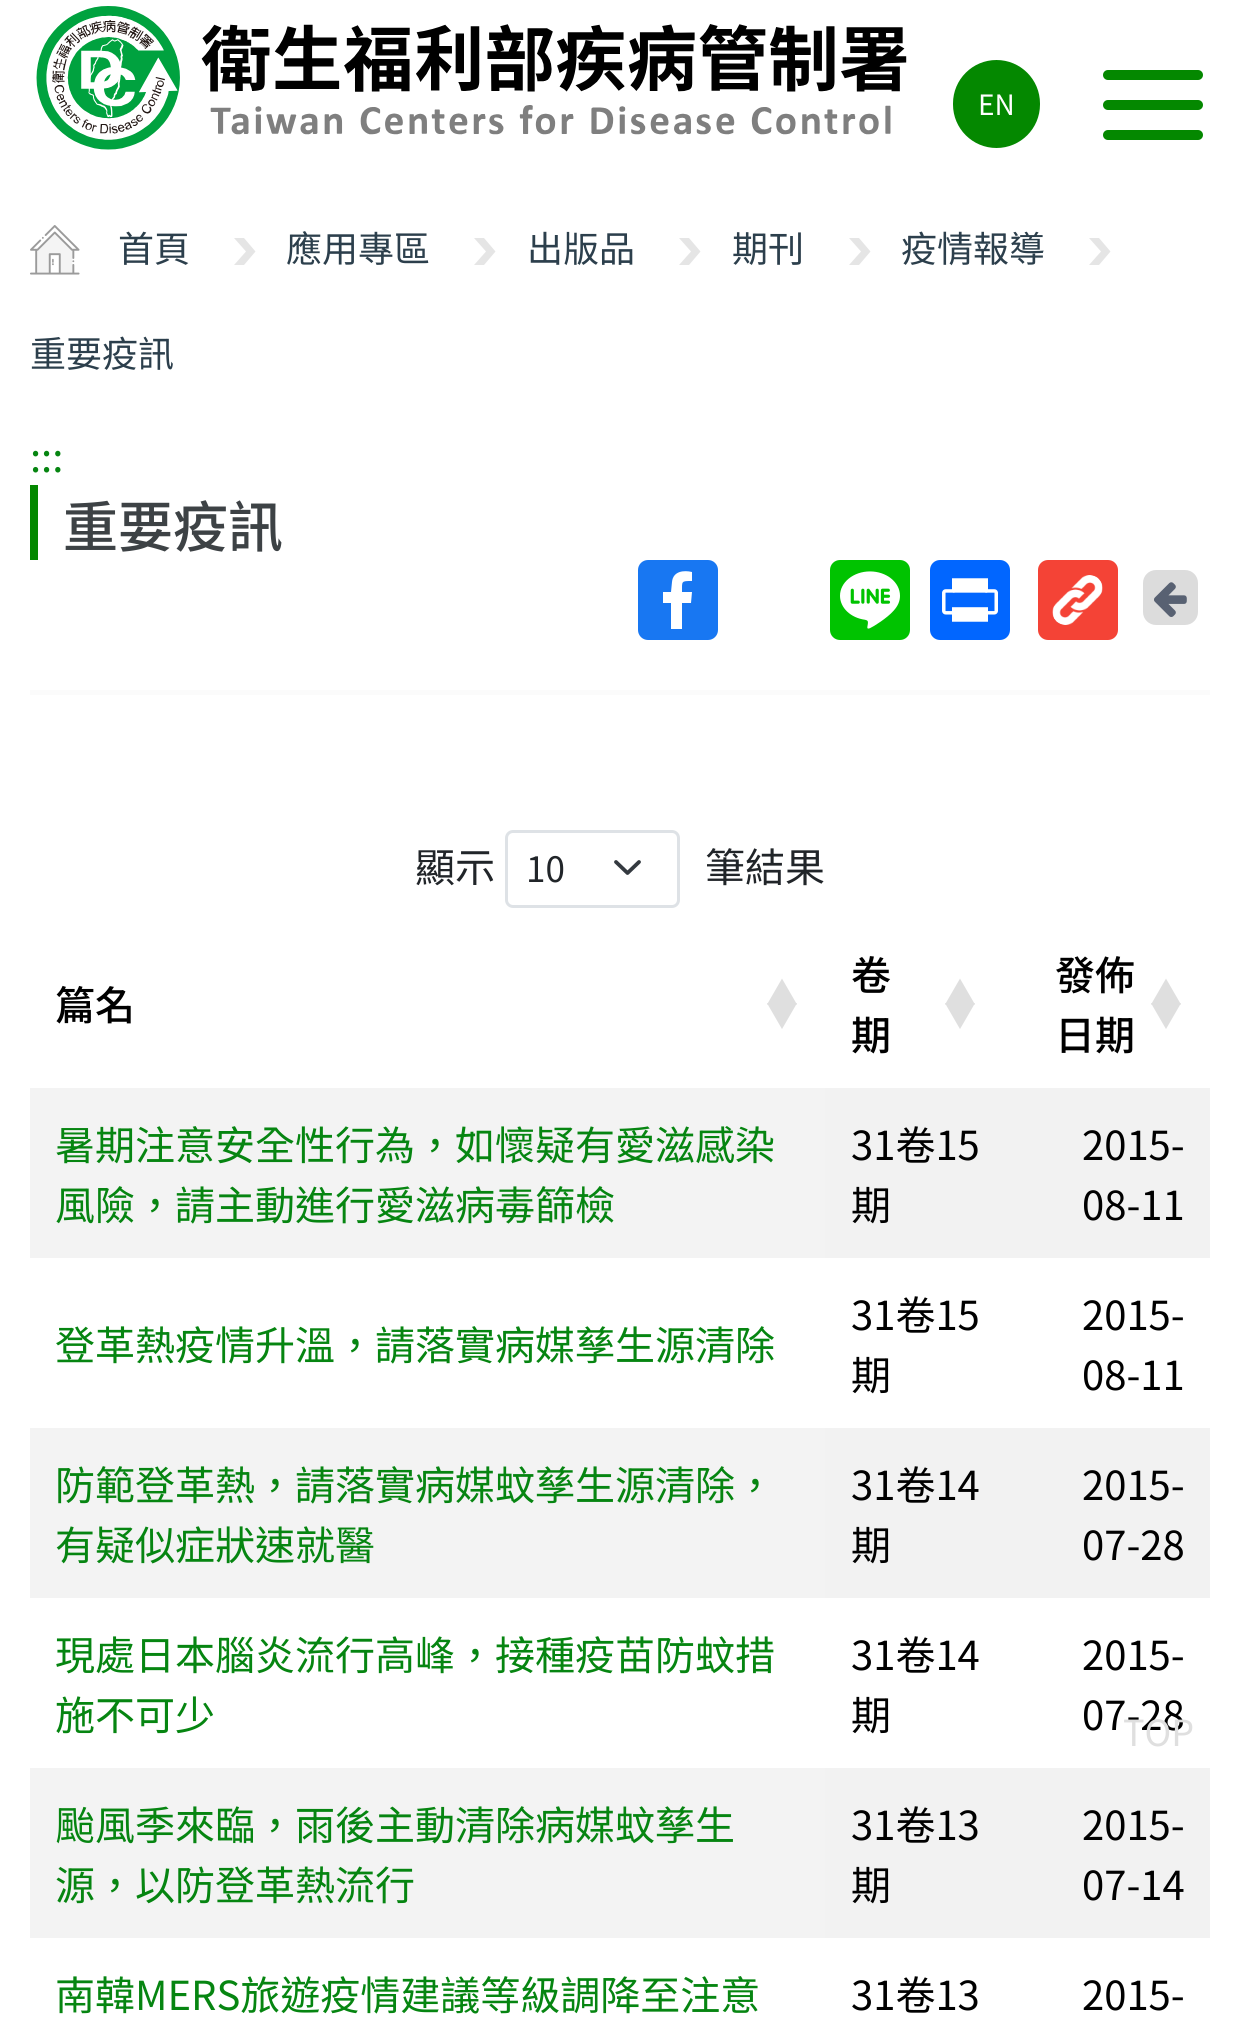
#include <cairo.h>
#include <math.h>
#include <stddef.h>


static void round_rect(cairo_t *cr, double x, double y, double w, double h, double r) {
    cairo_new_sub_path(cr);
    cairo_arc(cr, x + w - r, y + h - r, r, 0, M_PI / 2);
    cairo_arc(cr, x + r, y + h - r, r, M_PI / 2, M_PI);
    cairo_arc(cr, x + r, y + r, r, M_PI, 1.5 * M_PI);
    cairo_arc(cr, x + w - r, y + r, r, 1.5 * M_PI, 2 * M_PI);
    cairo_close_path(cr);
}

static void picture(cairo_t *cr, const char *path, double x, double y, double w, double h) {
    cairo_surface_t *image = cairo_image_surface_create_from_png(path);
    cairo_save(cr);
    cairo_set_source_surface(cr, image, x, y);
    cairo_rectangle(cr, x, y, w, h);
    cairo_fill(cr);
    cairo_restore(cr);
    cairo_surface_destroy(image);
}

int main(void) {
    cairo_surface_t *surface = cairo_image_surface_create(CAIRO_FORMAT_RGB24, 1238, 2024);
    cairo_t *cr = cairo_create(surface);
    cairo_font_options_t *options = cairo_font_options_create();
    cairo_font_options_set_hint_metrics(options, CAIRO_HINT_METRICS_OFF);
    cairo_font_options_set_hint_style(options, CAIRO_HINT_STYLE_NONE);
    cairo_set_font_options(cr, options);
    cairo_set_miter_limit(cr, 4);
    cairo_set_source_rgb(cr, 1, 1, 1);
    cairo_paint(cr);
    picture(cr, "img1.png", 36, 6, 871, 144);
    cairo_set_source_rgb(cr, 0.016, 0.533, 0);
    round_rect(cr, 953, 60, 87, 88, 43.5);
    cairo_fill(cr);
    cairo_select_font_face(cr, "Noto Sans TC", CAIRO_FONT_SLANT_NORMAL, CAIRO_FONT_WEIGHT_NORMAL);
    cairo_set_font_size(cr, 28);
    cairo_set_source_rgb(cr, 1, 1, 1);
    cairo_move_to(cr, 978, 115);
    cairo_show_text(cr, "EN");
    cairo_set_source_rgb(cr, 0.016, 0.533, 0);
    round_rect(cr, 1103, 70, 100, 10, 5);
    cairo_fill(cr);
    round_rect(cr, 1103, 100, 100, 10, 5);
    cairo_fill(cr);
    round_rect(cr, 1103, 130, 100, 10, 5);
    cairo_fill(cr);
    picture(cr, "img2.png", 30, 225, 50, 50);
    cairo_set_font_size(cr, 36);
    cairo_set_source_rgb(cr, 0.173, 0.247, 0.298);
    cairo_move_to(cr, 118, 262);
    cairo_show_text(cr, "首頁");
    cairo_set_source_rgb(cr, 0.898, 0.898, 0.898);
    cairo_new_path(cr);
    cairo_move_to(cr, 244, 238);
    cairo_line_to(cr, 234, 238);
    cairo_line_to(cr, 246, 251.5);
    cairo_line_to(cr, 234, 265);
    cairo_line_to(cr, 244, 265);
    cairo_line_to(cr, 255.5, 251.5);
    cairo_close_path(cr);
    cairo_fill(cr);
    cairo_set_source_rgb(cr, 0.173, 0.247, 0.298);
    cairo_move_to(cr, 286, 262);
    cairo_show_text(cr, "應用專區");
    cairo_set_source_rgb(cr, 0.898, 0.898, 0.898);
    cairo_new_path(cr);
    cairo_move_to(cr, 484, 238);
    cairo_line_to(cr, 474, 238);
    cairo_line_to(cr, 486, 251.5);
    cairo_line_to(cr, 474, 265);
    cairo_line_to(cr, 484, 265);
    cairo_line_to(cr, 495.5, 251.5);
    cairo_close_path(cr);
    cairo_fill(cr);
    cairo_set_source_rgb(cr, 0.173, 0.247, 0.298);
    cairo_move_to(cr, 527, 262);
    cairo_show_text(cr, "出版品");
    cairo_set_source_rgb(cr, 0.898, 0.898, 0.898);
    cairo_new_path(cr);
    cairo_move_to(cr, 689, 238);
    cairo_line_to(cr, 679, 238);
    cairo_line_to(cr, 691, 251.5);
    cairo_line_to(cr, 679, 265);
    cairo_line_to(cr, 689, 265);
    cairo_line_to(cr, 700.5, 251.5);
    cairo_close_path(cr);
    cairo_fill(cr);
    cairo_set_source_rgb(cr, 0.173, 0.247, 0.298);
    cairo_move_to(cr, 732, 262);
    cairo_show_text(cr, "期刊");
    cairo_set_source_rgb(cr, 0.898, 0.898, 0.898);
    cairo_new_path(cr);
    cairo_move_to(cr, 859, 238);
    cairo_line_to(cr, 849, 238);
    cairo_line_to(cr, 861, 251.5);
    cairo_line_to(cr, 849, 265);
    cairo_line_to(cr, 859, 265);
    cairo_line_to(cr, 870.5, 251.5);
    cairo_close_path(cr);
    cairo_fill(cr);
    cairo_set_source_rgb(cr, 0.173, 0.247, 0.298);
    cairo_move_to(cr, 901, 262);
    cairo_show_text(cr, "疫情報導");
    cairo_set_source_rgb(cr, 0.898, 0.898, 0.898);
    cairo_new_path(cr);
    cairo_move_to(cr, 1099, 238);
    cairo_line_to(cr, 1089, 238);
    cairo_line_to(cr, 1101, 251.5);
    cairo_line_to(cr, 1089, 265);
    cairo_line_to(cr, 1099, 265);
    cairo_line_to(cr, 1110.5, 251.5);
    cairo_close_path(cr);
    cairo_fill(cr);
    cairo_set_source_rgb(cr, 0.173, 0.247, 0.298);
    cairo_move_to(cr, 30, 367);
    cairo_show_text(cr, "重要疫訊");
    cairo_set_font_size(cr, 40);
    cairo_set_source_rgb(cr, 0.024, 0.522, 0.067);
    cairo_move_to(cr, 30, 472);
    cairo_show_text(cr, ":::");
    cairo_set_source_rgb(cr, 0.016, 0.533, 0);
    cairo_rectangle(cr, 30, 485, 8, 75);
    cairo_fill(cr);
    cairo_select_font_face(cr, "Noto Sans TC Medium", CAIRO_FONT_SLANT_NORMAL, CAIRO_FONT_WEIGHT_NORMAL);
    cairo_set_font_size(cr, 55);
    cairo_set_source_rgb(cr, 0.239, 0.259, 0.271);
    cairo_move_to(cr, 63, 547);
    cairo_show_text(cr, "重要疫訊");
    cairo_set_source_rgb(cr, 0.094, 0.467, 0.949);
    round_rect(cr, 638, 560, 80, 80, 10);
    cairo_fill(cr);
    cairo_set_source_rgb(cr, 1, 1, 1);
    cairo_new_path(cr);
    cairo_move_to(cr, 682, 629);
    cairo_line_to(cr, 682, 603);
    cairo_line_to(cr, 691, 603);
    cairo_line_to(cr, 692, 592);
    cairo_line_to(cr, 682, 592);
    cairo_curve_to(cr, 682, 581, 681, 581, 692, 581);
    cairo_line_to(cr, 692, 572);
    cairo_curve_to(cr, 684, 570, 673, 571, 672, 582);
    cairo_line_to(cr, 671, 592);
    cairo_line_to(cr, 663, 592);
    cairo_line_to(cr, 663, 603);
    cairo_line_to(cr, 671, 603);
    cairo_line_to(cr, 671, 629);
    cairo_close_path(cr);
    cairo_fill(cr);
    cairo_set_source_rgb(cr, 0, 0.765, 0);
    round_rect(cr, 830, 560, 80, 80, 10);
    cairo_fill(cr);
    picture(cr, "img3.png", 840, 571, 60, 58);
    cairo_set_source_rgb(cr, 0.004, 0.4, 1);
    round_rect(cr, 930, 560, 80, 80, 10);
    cairo_fill(cr);
    picture(cr, "img4.png", 942, 578, 56, 44);
    cairo_set_source_rgb(cr, 0.957, 0.263, 0.212);
    round_rect(cr, 1038, 560, 80, 80, 10);
    cairo_fill(cr);
    picture(cr, "img5.png", 1052, 575, 51, 50);
    cairo_set_source_rgb(cr, 0.863, 0.863, 0.863);
    round_rect(cr, 1143, 570, 55, 55, 13);
    cairo_fill(cr);
    picture(cr, "img6.png", 1154, 582, 33, 35);
    cairo_set_source_rgb(cr, 0.984, 0.984, 0.984);
    cairo_rectangle(cr, 30, 690, 1180, 5);
    cairo_fill(cr);
    cairo_select_font_face(cr, "Noto Sans TC", CAIRO_FONT_SLANT_NORMAL, CAIRO_FONT_WEIGHT_NORMAL);
    cairo_set_font_size(cr, 40);
    cairo_set_source_rgb(cr, 0.129, 0.145, 0.161);
    cairo_move_to(cr, 415, 882);
    cairo_show_text(cr, "顯示");
    cairo_new_path(cr);
    cairo_move_to(cr, 616, 862);
    cairo_line_to(cr, 627.5, 873);
    cairo_line_to(cr, 639, 862);
    cairo_set_source_rgb(cr, 0.204, 0.227, 0.251);
    cairo_set_line_width(cr, 3.8);
    cairo_set_line_cap(cr, CAIRO_LINE_CAP_ROUND);
    cairo_set_line_join(cr, CAIRO_LINE_JOIN_ROUND);
    cairo_stroke(cr);
    round_rect(cr, 506.5, 831.5, 172, 75, 6.5);
    cairo_set_source_rgb(cr, 0.871, 0.886, 0.902);
    cairo_set_line_width(cr, 3);
    cairo_set_line_cap(cr, CAIRO_LINE_CAP_BUTT);
    cairo_set_line_join(cr, CAIRO_LINE_JOIN_MITER);
    cairo_stroke(cr);
    cairo_set_font_size(cr, 35);
    cairo_set_source_rgb(cr, 0.129, 0.145, 0.161);
    cairo_move_to(cr, 526, 882);
    cairo_show_text(cr, "10");
    cairo_set_font_size(cr, 40);
    cairo_move_to(cr, 705, 882);
    cairo_show_text(cr, "筆結果");
    cairo_select_font_face(cr, "Noto Sans TC Medium", CAIRO_FONT_SLANT_NORMAL, CAIRO_FONT_WEIGHT_NORMAL);
    cairo_set_source_rgb(cr, 0, 0, 0);
    cairo_move_to(cr, 55, 1020);
    cairo_show_text(cr, "篇名");
    cairo_set_font_size(cr, 32);
    cairo_set_source_rgb(cr, 0.875, 0.875, 0.875);
    cairo_move_to(cr, 766, 1005);
    cairo_show_text(cr, "▲");
    cairo_move_to(cr, 766, 1027);
    cairo_show_text(cr, "▼");
    cairo_set_font_size(cr, 40);
    cairo_set_source_rgb(cr, 0, 0, 0);
    cairo_move_to(cr, 851, 990);
    cairo_show_text(cr, "卷");
    cairo_set_font_size(cr, 32);
    cairo_set_source_rgb(cr, 0.875, 0.875, 0.875);
    cairo_move_to(cr, 944, 1005);
    cairo_show_text(cr, "▲");
    cairo_move_to(cr, 944, 1027);
    cairo_show_text(cr, "▼");
    cairo_set_font_size(cr, 40);
    cairo_set_source_rgb(cr, 0, 0, 0);
    cairo_move_to(cr, 851, 1050);
    cairo_show_text(cr, "期");
    cairo_move_to(cr, 1055, 990);
    cairo_show_text(cr, "發佈");
    cairo_set_font_size(cr, 32);
    cairo_set_source_rgb(cr, 0.875, 0.875, 0.875);
    cairo_move_to(cr, 1150, 1005);
    cairo_show_text(cr, "▲");
    cairo_move_to(cr, 1150, 1027);
    cairo_show_text(cr, "▼");
    cairo_set_font_size(cr, 40);
    cairo_set_source_rgb(cr, 0, 0, 0);
    cairo_move_to(cr, 1055, 1050);
    cairo_show_text(cr, "日期");
    cairo_set_source_rgb(cr, 0.953, 0.953, 0.953);
    cairo_rectangle(cr, 30, 1088, 795, 170);
    cairo_fill(cr);
    cairo_select_font_face(cr, "Noto Sans TC", CAIRO_FONT_SLANT_NORMAL, CAIRO_FONT_WEIGHT_NORMAL);
    cairo_set_source_rgb(cr, 0.024, 0.522, 0.067);
    cairo_move_to(cr, 55, 1160);
    cairo_show_text(cr, "暑期注意安全性行為，如懷疑有愛滋感染");
    cairo_move_to(cr, 55, 1220);
    cairo_show_text(cr, "風險，請主動進行愛滋病毒篩檢");
    cairo_set_source_rgb(cr, 0.949, 0.949, 0.949);
    cairo_rectangle(cr, 825, 1088, 385, 170);
    cairo_fill(cr);
    cairo_set_source_rgb(cr, 0, 0, 0);
    cairo_move_to(cr, 851, 1160);
    cairo_show_text(cr, "31卷15");
    cairo_move_to(cr, 851, 1220);
    cairo_show_text(cr, "期");
    cairo_move_to(cr, 1082, 1160);
    cairo_show_text(cr, "2015-");
    cairo_move_to(cr, 1082, 1220);
    cairo_show_text(cr, "08-11");
    cairo_set_source_rgb(cr, 0.024, 0.522, 0.067);
    cairo_move_to(cr, 55, 1360);
    cairo_show_text(cr, "登革熱疫情升溫，請落實病媒孳生源清除");
    cairo_set_source_rgb(cr, 0, 0, 0);
    cairo_move_to(cr, 851, 1330);
    cairo_show_text(cr, "31卷15");
    cairo_move_to(cr, 851, 1390);
    cairo_show_text(cr, "期");
    cairo_move_to(cr, 1082, 1330);
    cairo_show_text(cr, "2015-");
    cairo_move_to(cr, 1082, 1390);
    cairo_show_text(cr, "08-11");
    cairo_set_source_rgb(cr, 0.953, 0.953, 0.953);
    cairo_rectangle(cr, 30, 1428, 795, 170);
    cairo_fill(cr);
    cairo_set_source_rgb(cr, 0.024, 0.522, 0.067);
    cairo_move_to(cr, 55, 1500);
    cairo_show_text(cr, "防範登革熱，請落實病媒蚊孳生源清除，");
    cairo_move_to(cr, 55, 1560);
    cairo_show_text(cr, "有疑似症狀速就醫");
    cairo_set_source_rgb(cr, 0.949, 0.949, 0.949);
    cairo_rectangle(cr, 825, 1428, 385, 170);
    cairo_fill(cr);
    cairo_set_source_rgb(cr, 0, 0, 0);
    cairo_move_to(cr, 851, 1500);
    cairo_show_text(cr, "31卷14");
    cairo_move_to(cr, 851, 1560);
    cairo_show_text(cr, "期");
    cairo_move_to(cr, 1082, 1500);
    cairo_show_text(cr, "2015-");
    cairo_move_to(cr, 1082, 1560);
    cairo_show_text(cr, "07-28");
    cairo_set_source_rgb(cr, 0.024, 0.522, 0.067);
    cairo_move_to(cr, 55, 1670);
    cairo_show_text(cr, "現處日本腦炎流行高峰，接種疫苗防蚊措");
    cairo_move_to(cr, 55, 1730);
    cairo_show_text(cr, "施不可少");
    cairo_set_source_rgb(cr, 0, 0, 0);
    cairo_move_to(cr, 851, 1670);
    cairo_show_text(cr, "31卷14");
    cairo_move_to(cr, 851, 1730);
    cairo_show_text(cr, "期");
    cairo_move_to(cr, 1082, 1670);
    cairo_show_text(cr, "2015-");
    cairo_move_to(cr, 1082, 1730);
    cairo_show_text(cr, "07-28");
    cairo_set_source_rgb(cr, 0.953, 0.953, 0.953);
    cairo_rectangle(cr, 30, 1768, 795, 170);
    cairo_fill(cr);
    cairo_set_source_rgb(cr, 0.024, 0.522, 0.067);
    cairo_move_to(cr, 55, 1840);
    cairo_show_text(cr, "颱風季來臨，雨後主動清除病媒蚊孳生");
    cairo_move_to(cr, 55, 1900);
    cairo_show_text(cr, "源，以防登革熱流行");
    cairo_set_source_rgb(cr, 0.949, 0.949, 0.949);
    cairo_rectangle(cr, 825, 1768, 385, 170);
    cairo_fill(cr);
    cairo_set_source_rgb(cr, 0, 0, 0);
    cairo_move_to(cr, 851, 1840);
    cairo_show_text(cr, "31卷13");
    cairo_move_to(cr, 851, 1900);
    cairo_show_text(cr, "期");
    cairo_move_to(cr, 1082, 1840);
    cairo_show_text(cr, "2015-");
    cairo_move_to(cr, 1082, 1900);
    cairo_show_text(cr, "07-14");
    cairo_set_source_rgb(cr, 0.024, 0.522, 0.067);
    cairo_move_to(cr, 55, 2010);
    cairo_show_text(cr, "南韓MERS旅遊疫情建議等級調降至注意");
    cairo_set_source_rgb(cr, 0, 0, 0);
    cairo_move_to(cr, 851, 2010);
    cairo_show_text(cr, "31卷13");
    cairo_move_to(cr, 1082, 2010);
    cairo_show_text(cr, "2015-");
    cairo_set_font_size(cr, 36);
    cairo_set_source_rgb(cr, 0.875, 0.875, 0.875);
    cairo_move_to(cr, 1123, 1746);
    cairo_show_text(cr, "TOP");
    cairo_surface_write_to_png(surface, "page.png");
    cairo_font_options_destroy(options);
    cairo_destroy(cr);
    cairo_surface_destroy(surface);
    return 0;
}
